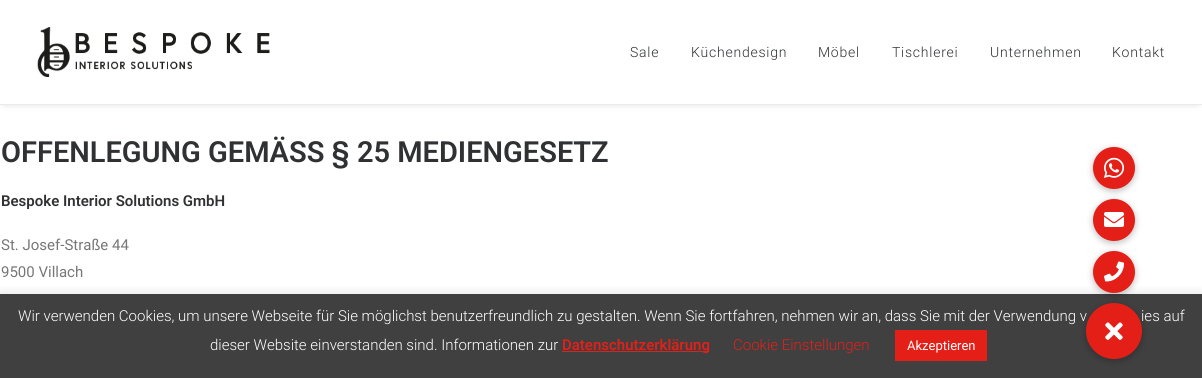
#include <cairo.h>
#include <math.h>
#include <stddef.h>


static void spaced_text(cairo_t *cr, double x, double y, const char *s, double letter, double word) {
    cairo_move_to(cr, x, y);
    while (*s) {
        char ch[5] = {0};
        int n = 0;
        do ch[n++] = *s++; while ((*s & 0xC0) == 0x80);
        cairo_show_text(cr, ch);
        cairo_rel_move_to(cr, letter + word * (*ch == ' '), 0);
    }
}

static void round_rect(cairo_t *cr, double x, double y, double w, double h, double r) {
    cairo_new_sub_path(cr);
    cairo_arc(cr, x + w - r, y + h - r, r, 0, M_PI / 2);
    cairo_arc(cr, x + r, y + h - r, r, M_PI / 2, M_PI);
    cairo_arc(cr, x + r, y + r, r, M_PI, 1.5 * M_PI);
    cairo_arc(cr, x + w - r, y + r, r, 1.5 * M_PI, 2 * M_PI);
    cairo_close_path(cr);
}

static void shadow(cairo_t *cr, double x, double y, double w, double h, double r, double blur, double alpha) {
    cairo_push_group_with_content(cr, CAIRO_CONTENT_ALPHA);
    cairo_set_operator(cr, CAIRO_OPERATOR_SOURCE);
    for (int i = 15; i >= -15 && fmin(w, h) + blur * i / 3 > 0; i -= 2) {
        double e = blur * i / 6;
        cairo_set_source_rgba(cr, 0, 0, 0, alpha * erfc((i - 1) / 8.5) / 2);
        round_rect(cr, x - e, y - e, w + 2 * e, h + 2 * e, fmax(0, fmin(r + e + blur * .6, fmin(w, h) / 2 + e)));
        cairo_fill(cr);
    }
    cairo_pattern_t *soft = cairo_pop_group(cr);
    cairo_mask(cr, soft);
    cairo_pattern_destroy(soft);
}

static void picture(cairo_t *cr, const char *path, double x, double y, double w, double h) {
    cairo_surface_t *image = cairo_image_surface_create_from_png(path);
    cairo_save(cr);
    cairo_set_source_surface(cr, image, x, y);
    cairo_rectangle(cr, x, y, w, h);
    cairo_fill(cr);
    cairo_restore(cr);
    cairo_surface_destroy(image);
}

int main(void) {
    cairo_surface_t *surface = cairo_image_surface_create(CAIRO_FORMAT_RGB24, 1202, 378);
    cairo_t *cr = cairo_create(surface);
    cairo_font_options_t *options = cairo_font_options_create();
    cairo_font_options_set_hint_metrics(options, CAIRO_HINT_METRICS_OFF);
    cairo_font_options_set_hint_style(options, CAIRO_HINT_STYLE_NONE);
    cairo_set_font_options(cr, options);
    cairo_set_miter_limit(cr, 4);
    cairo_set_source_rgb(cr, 1, 1, 1);
    cairo_paint(cr);
    cairo_set_source_rgb(cr, 0, 0, 0);
    shadow(cr, 5, 14, 1192, 85, 0, 5, 0.6);
    cairo_set_source_rgb(cr, 1, 1, 1);
    cairo_rectangle(cr, 0, 3, 1202, 101);
    cairo_fill(cr);
    cairo_set_source_rgb(cr, 0.918, 0.918, 0.918);
    cairo_rectangle(cr, 0, 104, 1202, 1);
    cairo_fill(cr);
    picture(cr, "img1.png", 37, 27, 233, 50);
    cairo_select_font_face(cr, "Roboto Light", CAIRO_FONT_SLANT_NORMAL, CAIRO_FONT_WEIGHT_NORMAL);
    cairo_set_font_size(cr, 14);
    cairo_set_source_rgb(cr, 0.188, 0.192, 0.2);
    spaced_text(cr, 630, 57, "Sale", 0.75, 0);
    spaced_text(cr, 691, 57, "Küchendesign", 0.75, 0);
    spaced_text(cr, 818, 57, "Möbel", 0.75, 0);
    spaced_text(cr, 892, 57, "Tischlerei", 0.75, 0);
    spaced_text(cr, 990, 57, "Unternehmen", 0.75, 0);
    spaced_text(cr, 1112, 57, "Kontakt", 0.75, 0);
    cairo_select_font_face(cr, "Roboto SemiBold", CAIRO_FONT_SLANT_NORMAL, CAIRO_FONT_WEIGHT_NORMAL);
    cairo_set_font_size(cr, 29);
    cairo_move_to(cr, 1, 162);
    cairo_show_text(cr, "OFFENLEGUNG GEMÄSS § 25 MEDIENGESETZ");
    cairo_set_font_size(cr, 15);
    cairo_move_to(cr, 1, 206);
    cairo_show_text(cr, "Bespoke Interior Solutions GmbH");
    cairo_select_font_face(cr, "Roboto", CAIRO_FONT_SLANT_NORMAL, CAIRO_FONT_WEIGHT_NORMAL);
    cairo_set_source_rgb(cr, 0.467, 0.467, 0.467);
    cairo_move_to(cr, 1, 250);
    cairo_show_text(cr, "St. Josef-Straße 44");
    cairo_move_to(cr, 1, 277);
    cairo_show_text(cr, "9500 Villach");
    cairo_save(cr);
    cairo_rectangle(cr, 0, 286, 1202, 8);
    cairo_clip(cr);
    cairo_set_source_rgb(cr, 0.675, 0.671, 0.671);
    shadow(cr, 0, 293, 1202, 84, 0, 5, 0.3);
    cairo_restore(cr);
    cairo_set_source_rgba(cr, 0, 0, 0, 0.75);
    cairo_rectangle(cr, 0, 294, 1202, 84);
    cairo_fill(cr);
    cairo_set_source_rgb(cr, 0, 0, 0);
    shadow(cr, 1092, 252, 44, 44, 22, 3, 0.2);
    cairo_set_source_rgb(cr, 0.894, 0.122, 0.094);
    cairo_arc(cr, 1114, 272, 21, 0, 2 * M_PI);
    cairo_fill(cr);
    cairo_set_source_rgb(cr, 0, 0, 0);
    shadow(cr, 1092, 200, 44, 44, 22, 3, 0.2);
    cairo_set_source_rgb(cr, 0.894, 0.122, 0.094);
    cairo_arc(cr, 1114, 220, 21, 0, 2 * M_PI);
    cairo_fill(cr);
    cairo_set_source_rgb(cr, 0, 0, 0);
    shadow(cr, 1092, 148, 44, 44, 22, 3, 0.2);
    cairo_set_source_rgb(cr, 0.894, 0.122, 0.094);
    cairo_arc(cr, 1114, 168, 21, 0, 2 * M_PI);
    cairo_fill(cr);
    picture(cr, "img2.png", 1104, 157, 21, 21);
    picture(cr, "img3.png", 1104, 212, 20, 15);
    picture(cr, "img4.png", 1104, 261, 20, 21);
    cairo_set_source_rgb(cr, 0, 0, 0);
    shadow(cr, 1085, 304, 58, 58, 29, 3, 0.2);
    cairo_select_font_face(cr, "Roboto Light", CAIRO_FONT_SLANT_NORMAL, CAIRO_FONT_WEIGHT_NORMAL);
    cairo_set_source_rgb(cr, 1, 1, 1);
    cairo_move_to(cr, 18, 321);
    cairo_show_text(cr, "Wir verwenden Cookies, um unsere Webseite für Sie möglichst benutzerfreundlich zu gestalten. Wenn Sie fortfahren, nehmen wir an, dass Sie mit der Verwendung v");
    cairo_move_to(cr, 1141, 321);
    cairo_show_text(cr, "ies auf");
    cairo_set_source_rgb(cr, 0.894, 0.122, 0.094);
    cairo_new_path(cr);
    cairo_arc(cr, 1114, 331, 28, 0, 2 * M_PI);
    cairo_fill(cr);
    picture(cr, "img5.png", 1105, 322, 18, 18);
    cairo_set_source_rgb(cr, 1, 1, 1);
    cairo_move_to(cr, 210, 350);
    cairo_show_text(cr, "dieser Website einverstanden sind. Informationen zur");
    cairo_set_source_rgb(cr, 0.894, 0.122, 0.094);
    cairo_rectangle(cr, 562, 351, 147, 1);
    cairo_fill(cr);
    cairo_select_font_face(cr, "Roboto Medium", CAIRO_FONT_SLANT_NORMAL, CAIRO_FONT_WEIGHT_NORMAL);
    cairo_move_to(cr, 562, 350);
    cairo_show_text(cr, "Datenschutzerklärung");
    cairo_select_font_face(cr, "Roboto Light", CAIRO_FONT_SLANT_NORMAL, CAIRO_FONT_WEIGHT_NORMAL);
    cairo_move_to(cr, 733, 350);
    cairo_show_text(cr, "Cookie Einstellungen");
    cairo_rectangle(cr, 895, 330, 92, 31);
    cairo_fill(cr);
    cairo_select_font_face(cr, "Roboto", CAIRO_FONT_SLANT_NORMAL, CAIRO_FONT_WEIGHT_NORMAL);
    cairo_set_font_size(cr, 13);
    cairo_set_source_rgb(cr, 1, 1, 1);
    cairo_move_to(cr, 907, 350);
    cairo_show_text(cr, "Akzeptieren");
    cairo_surface_write_to_png(surface, "page.png");
    cairo_font_options_destroy(options);
    cairo_destroy(cr);
    cairo_surface_destroy(surface);
    return 0;
}
